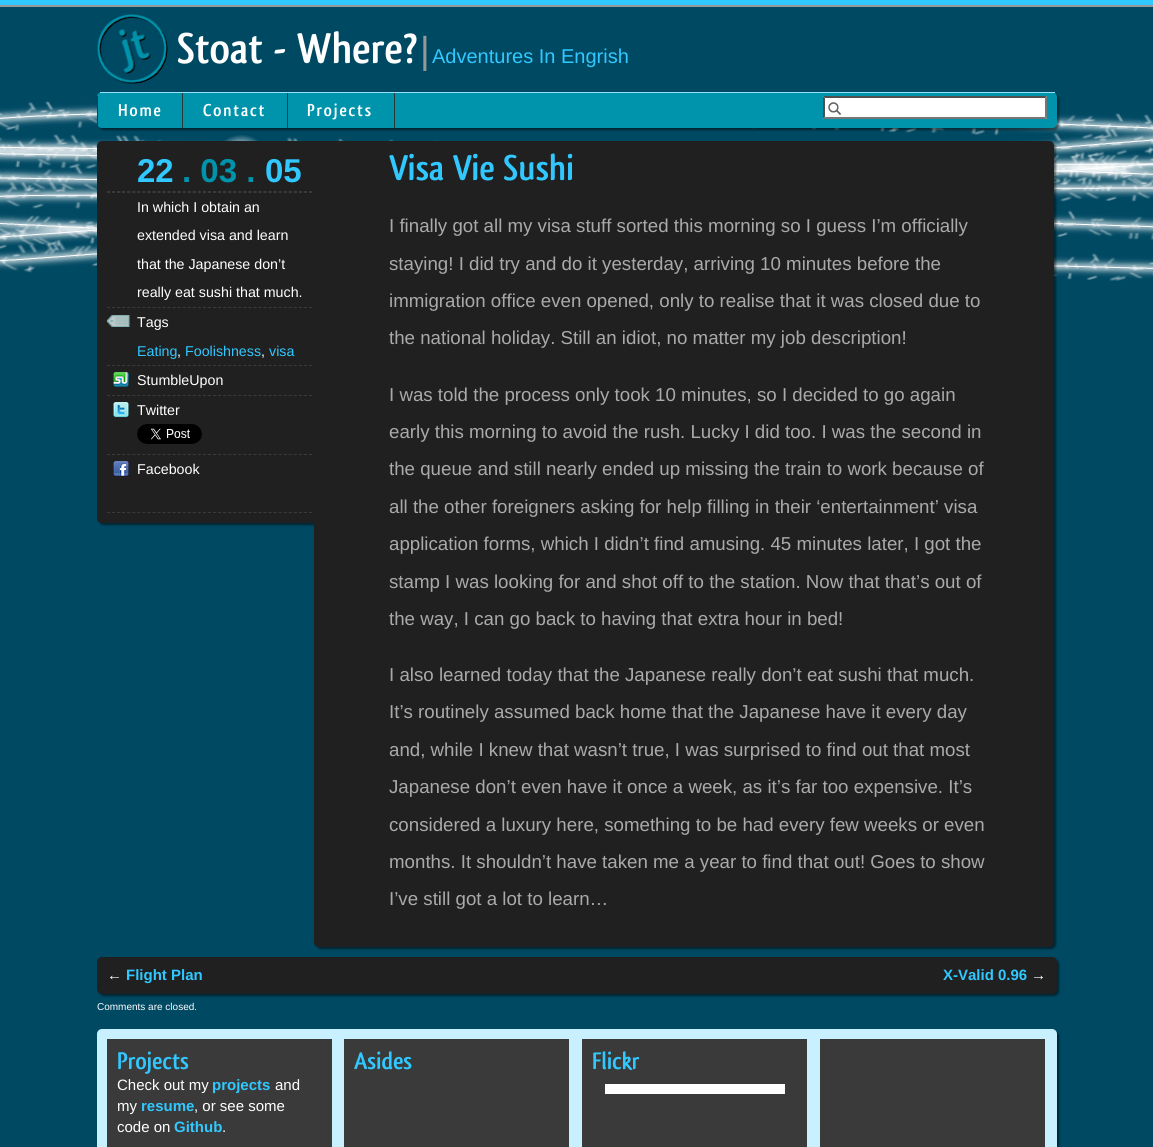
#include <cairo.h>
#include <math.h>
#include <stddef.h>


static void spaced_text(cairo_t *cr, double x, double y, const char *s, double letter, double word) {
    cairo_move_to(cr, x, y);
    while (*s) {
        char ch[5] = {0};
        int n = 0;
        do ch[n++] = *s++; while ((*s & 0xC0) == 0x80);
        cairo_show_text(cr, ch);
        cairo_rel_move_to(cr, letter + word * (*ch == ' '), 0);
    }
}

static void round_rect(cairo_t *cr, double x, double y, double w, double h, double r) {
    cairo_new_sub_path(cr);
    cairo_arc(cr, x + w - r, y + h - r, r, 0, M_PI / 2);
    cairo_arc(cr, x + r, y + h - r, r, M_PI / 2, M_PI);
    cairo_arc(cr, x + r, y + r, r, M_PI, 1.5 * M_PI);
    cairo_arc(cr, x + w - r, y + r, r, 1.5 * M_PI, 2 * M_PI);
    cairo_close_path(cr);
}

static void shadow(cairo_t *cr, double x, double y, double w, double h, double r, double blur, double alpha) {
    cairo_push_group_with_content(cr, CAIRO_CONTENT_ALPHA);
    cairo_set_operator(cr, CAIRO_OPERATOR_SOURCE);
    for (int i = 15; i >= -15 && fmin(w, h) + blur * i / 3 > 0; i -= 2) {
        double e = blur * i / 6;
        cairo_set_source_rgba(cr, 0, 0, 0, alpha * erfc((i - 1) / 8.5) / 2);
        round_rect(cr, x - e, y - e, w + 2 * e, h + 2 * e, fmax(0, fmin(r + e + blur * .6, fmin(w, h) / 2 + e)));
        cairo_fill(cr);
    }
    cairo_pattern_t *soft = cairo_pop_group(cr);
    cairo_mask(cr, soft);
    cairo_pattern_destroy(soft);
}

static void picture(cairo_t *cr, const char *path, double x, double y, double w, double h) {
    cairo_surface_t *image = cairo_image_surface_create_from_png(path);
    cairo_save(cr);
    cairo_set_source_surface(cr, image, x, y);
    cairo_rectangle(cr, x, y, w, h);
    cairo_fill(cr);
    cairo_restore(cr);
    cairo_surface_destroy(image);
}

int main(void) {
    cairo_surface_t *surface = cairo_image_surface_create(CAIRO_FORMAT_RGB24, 1153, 1147);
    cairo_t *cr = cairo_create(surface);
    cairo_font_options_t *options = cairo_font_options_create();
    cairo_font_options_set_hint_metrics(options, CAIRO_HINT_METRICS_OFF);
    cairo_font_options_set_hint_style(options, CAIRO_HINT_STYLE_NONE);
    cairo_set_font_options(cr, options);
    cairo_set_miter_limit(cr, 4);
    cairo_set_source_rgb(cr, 0, 0.286, 0.388);
    cairo_paint(cr);
    cairo_set_source_rgb(cr, 0.192, 0.784, 1);
    cairo_rectangle(cr, 0, 0, 1153, 5);
    cairo_fill(cr);
    picture(cr, "img1.png", 0, 101, 1153, 180);
    cairo_set_source_rgb(cr, 0.596, 0.596, 0.596);
    cairo_rectangle(cr, 0, 5, 1153, 2);
    cairo_fill(cr);
    picture(cr, "img2.png", 97, 14, 71, 70);
    cairo_select_font_face(cr, "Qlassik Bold", CAIRO_FONT_SLANT_NORMAL, CAIRO_FONT_WEIGHT_BOLD);
    cairo_set_font_size(cr, 45);
    cairo_set_source_rgb(cr, 1, 1, 1);
    cairo_move_to(cr, 177, 63);
    cairo_show_text(cr, "Stoat - Where?");
    cairo_select_font_face(cr, "Liberation Sans", CAIRO_FONT_SLANT_NORMAL, CAIRO_FONT_WEIGHT_NORMAL);
    cairo_set_font_size(cr, 37.5);
    cairo_set_source_rgb(cr, 0.596, 0.596, 0.596);
    cairo_move_to(cr, 420, 63);
    cairo_show_text(cr, "|");
    cairo_set_font_size(cr, 20);
    cairo_set_source_rgb(cr, 0.192, 0.784, 1);
    cairo_move_to(cr, 432, 63);
    cairo_show_text(cr, "Adventures In Engrish");
    cairo_set_source_rgb(cr, 0, 0, 0);
    shadow(cr, 99, 94, 960, 36, 5, 1, 0.5);
    cairo_set_source_rgb(cr, 0, 0.58, 0.675);
    round_rect(cr, 97, 92, 960, 36, 5);
    cairo_fill(cr);
    cairo_set_source_rgb(cr, 0.592, 0.89, 1);
    cairo_rectangle(cr, 100, 92, 955, 1);
    cairo_fill(cr);
    cairo_set_source_rgb(cr, 0.18, 0.216, 0.216);
    cairo_rectangle(cr, 182, 93, 1, 35);
    cairo_fill(cr);
    cairo_rectangle(cr, 97, 96, 1, 30);
    cairo_fill(cr);
    cairo_select_font_face(cr, "Qlassik Bold", CAIRO_FONT_SLANT_NORMAL, CAIRO_FONT_WEIGHT_BOLD);
    cairo_set_font_size(cr, 18);
    cairo_set_source_rgb(cr, 1, 1, 1);
    spaced_text(cr, 118, 116, "Home", 1.75, 0);
    cairo_set_source_rgb(cr, 0.18, 0.216, 0.216);
    cairo_rectangle(cr, 287, 93, 1, 35);
    cairo_fill(cr);
    cairo_set_source_rgb(cr, 1, 1, 1);
    spaced_text(cr, 203, 116, "Contact", 1.75, 0);
    cairo_set_source_rgb(cr, 0.18, 0.216, 0.216);
    cairo_rectangle(cr, 394, 93, 1, 35);
    cairo_fill(cr);
    cairo_set_source_rgb(cr, 1, 1, 1);
    spaced_text(cr, 307, 116, "Projects", 1.75, 0);
    cairo_rectangle(cr, 823, 96, 224, 23);
    cairo_fill(cr);
    picture(cr, "img3.png", 828, 102, 13, 13);
    cairo_set_source_rgb(cr, 0.31, 0.31, 0.31);
    cairo_new_path(cr);
    cairo_move_to(cr, 823, 96);
    cairo_line_to(cr, 1047, 96);
    cairo_line_to(cr, 1045, 98);
    cairo_line_to(cr, 825, 98);
    cairo_close_path(cr);
    cairo_fill(cr);
    cairo_set_source_rgb(cr, 0.463, 0.463, 0.463);
    cairo_new_path(cr);
    cairo_move_to(cr, 1047, 96);
    cairo_line_to(cr, 1047, 119);
    cairo_line_to(cr, 1045, 117);
    cairo_line_to(cr, 1045, 98);
    cairo_close_path(cr);
    cairo_fill(cr);
    cairo_new_path(cr);
    cairo_move_to(cr, 1047, 119);
    cairo_line_to(cr, 823, 119);
    cairo_line_to(cr, 825, 117);
    cairo_line_to(cr, 1045, 117);
    cairo_close_path(cr);
    cairo_fill(cr);
    cairo_set_source_rgb(cr, 0.31, 0.31, 0.31);
    cairo_new_path(cr);
    cairo_move_to(cr, 823, 119);
    cairo_line_to(cr, 823, 96);
    cairo_line_to(cr, 825, 98);
    cairo_line_to(cr, 825, 117);
    cairo_close_path(cr);
    cairo_fill(cr);
    cairo_set_source_rgb(cr, 0, 0, 0);
    shadow(cr, 99, 143, 220, 382, 5, 1, 0.5);
    cairo_set_source_rgb(cr, 0.125, 0.125, 0.125);
    cairo_new_path(cr);
    cairo_move_to(cr, 102, 141);
    cairo_line_to(cr, 317, 141);
    cairo_line_to(cr, 317, 523);
    cairo_line_to(cr, 102, 523);
    cairo_curve_to(cr, 99, 523, 97, 521, 97, 518);
    cairo_line_to(cr, 97, 146);
    cairo_curve_to(cr, 97, 143, 99, 141, 102, 141);
    cairo_close_path(cr);
    cairo_fill(cr);
    cairo_new_path(cr);
    cairo_move_to(cr, 107, 191.5);
    cairo_line_to(cr, 327, 191.5);
    cairo_set_source_rgb(cr, 0.227, 0.227, 0.227);
    cairo_set_line_width(cr, 1);
    cairo_set_dash(cr, (double[]){3, 2.05}, 2, 0);
    cairo_stroke(cr);
    cairo_select_font_face(cr, "Liberation Sans", CAIRO_FONT_SLANT_NORMAL, CAIRO_FONT_WEIGHT_BOLD);
    cairo_set_font_size(cr, 33);
    cairo_set_source_rgb(cr, 0.192, 0.784, 1);
    cairo_move_to(cr, 137, 182);
    cairo_show_text(cr, "22");
    cairo_set_source_rgb(cr, 0, 0.58, 0.675);
    cairo_move_to(cr, 182, 182);
    cairo_show_text(cr, ". 03 .");
    cairo_set_source_rgb(cr, 0.192, 0.784, 1);
    cairo_move_to(cr, 265, 182);
    cairo_show_text(cr, "05");
    cairo_new_path(cr);
    cairo_move_to(cr, 107, 192.5);
    cairo_line_to(cr, 327, 192.5);
    cairo_set_source_rgb(cr, 0.227, 0.227, 0.227);
    cairo_stroke(cr);
    cairo_new_path(cr);
    cairo_move_to(cr, 107, 307.5);
    cairo_line_to(cr, 327, 307.5);
    cairo_stroke(cr);
    cairo_select_font_face(cr, "Liberation Sans", CAIRO_FONT_SLANT_NORMAL, CAIRO_FONT_WEIGHT_NORMAL);
    cairo_set_font_size(cr, 14.25);
    cairo_set_source_rgb(cr, 1, 1, 1);
    cairo_move_to(cr, 137, 212);
    cairo_show_text(cr, "In which I obtain an");
    cairo_move_to(cr, 137, 240);
    cairo_show_text(cr, "extended visa and learn");
    cairo_move_to(cr, 137, 269);
    cairo_show_text(cr, "that the Japanese don’t");
    cairo_move_to(cr, 137, 297);
    cairo_show_text(cr, "really eat sushi that much.");
    picture(cr, "img4.png", 107, 315, 23, 12);
    cairo_new_path(cr);
    cairo_move_to(cr, 107, 365.5);
    cairo_line_to(cr, 327, 365.5);
    cairo_set_source_rgb(cr, 0.227, 0.227, 0.227);
    cairo_stroke(cr);
    cairo_set_source_rgb(cr, 1, 1, 1);
    cairo_move_to(cr, 137, 327);
    cairo_show_text(cr, "Tags");
    cairo_set_source_rgb(cr, 0.192, 0.784, 1);
    cairo_move_to(cr, 137, 356);
    cairo_show_text(cr, "Eating");
    cairo_set_source_rgb(cr, 1, 1, 1);
    cairo_move_to(cr, 177, 356);
    cairo_show_text(cr, ",");
    cairo_set_source_rgb(cr, 0.192, 0.784, 1);
    cairo_move_to(cr, 185, 356);
    cairo_show_text(cr, "Foolishness");
    cairo_set_source_rgb(cr, 1, 1, 1);
    cairo_move_to(cr, 261, 356);
    cairo_show_text(cr, ",");
    cairo_set_source_rgb(cr, 0.192, 0.784, 1);
    cairo_move_to(cr, 269, 356);
    cairo_show_text(cr, "visa");
    picture(cr, "img5.png", 113, 372, 16, 15);
    cairo_new_path(cr);
    cairo_move_to(cr, 107, 395.5);
    cairo_line_to(cr, 327, 395.5);
    cairo_set_source_rgb(cr, 0.227, 0.227, 0.227);
    cairo_stroke(cr);
    cairo_set_source_rgb(cr, 1, 1, 1);
    cairo_move_to(cr, 137, 385);
    cairo_show_text(cr, "StumbleUpon");
    picture(cr, "img6.png", 113, 402, 16, 16);
    cairo_new_path(cr);
    cairo_move_to(cr, 107, 454.5);
    cairo_line_to(cr, 327, 454.5);
    cairo_set_source_rgb(cr, 0.227, 0.227, 0.227);
    cairo_stroke(cr);
    cairo_set_source_rgb(cr, 1, 1, 1);
    cairo_move_to(cr, 137, 415);
    cairo_show_text(cr, "Twitter");
    picture(cr, "img7.png", 137, 424, 65, 20);
    picture(cr, "img8.png", 113, 461, 16, 16);
    cairo_new_path(cr);
    cairo_move_to(cr, 107, 512.5);
    cairo_line_to(cr, 327, 512.5);
    cairo_set_source_rgb(cr, 0.227, 0.227, 0.227);
    cairo_stroke(cr);
    cairo_set_source_rgb(cr, 1, 1, 1);
    cairo_move_to(cr, 137, 474);
    cairo_show_text(cr, "Facebook");
    cairo_set_source_rgb(cr, 0, 0, 0);
    shadow(cr, 316, 143, 740, 806, 5, 1, 0.5);
    cairo_set_source_rgb(cr, 0.125, 0.125, 0.125);
    cairo_new_path(cr);
    cairo_move_to(cr, 314, 141);
    cairo_line_to(cr, 1049, 141);
    cairo_curve_to(cr, 1052, 141, 1054, 143, 1054, 146);
    cairo_line_to(cr, 1054, 942);
    cairo_curve_to(cr, 1054, 945, 1052, 947, 1049, 947);
    cairo_line_to(cr, 319, 947);
    cairo_curve_to(cr, 316, 947, 314, 945, 314, 942);
    cairo_close_path(cr);
    cairo_fill(cr);
    cairo_select_font_face(cr, "Qlassik Bold", CAIRO_FONT_SLANT_NORMAL, CAIRO_FONT_WEIGHT_BOLD);
    cairo_set_font_size(cr, 37.5);
    cairo_set_source_rgb(cr, 0.192, 0.784, 1);
    cairo_move_to(cr, 389, 180);
    cairo_show_text(cr, "Visa Vie Sushi");
    cairo_select_font_face(cr, "Liberation Sans", CAIRO_FONT_SLANT_NORMAL, CAIRO_FONT_WEIGHT_NORMAL);
    cairo_set_font_size(cr, 18.7);
    cairo_set_source_rgb(cr, 0.667, 0.667, 0.667);
    cairo_move_to(cr, 389, 232);
    cairo_show_text(cr, "I finally got all my visa stuff sorted this morning so I guess I’m officially");
    cairo_move_to(cr, 389, 270);
    cairo_show_text(cr, "staying! I did try and do it yesterday, arriving 10 minutes before the");
    cairo_move_to(cr, 389, 307);
    cairo_show_text(cr, "immigration office even opened, only to realise that it was closed due to");
    cairo_move_to(cr, 389, 344);
    cairo_show_text(cr, "the national holiday. Still an idiot, no matter my job description!");
    cairo_move_to(cr, 389, 401);
    cairo_show_text(cr, "I was told the process only took 10 minutes, so I decided to go again");
    cairo_move_to(cr, 389, 438);
    cairo_show_text(cr, "early this morning to avoid the rush. Lucky I did too. I was the second in");
    cairo_move_to(cr, 389, 475);
    cairo_show_text(cr, "the queue and still nearly ended up missing the train to work because of");
    cairo_move_to(cr, 389, 513);
    cairo_show_text(cr, "all the other foreigners asking for help filling in their ‘entertainment’ visa");
    cairo_move_to(cr, 389, 550);
    cairo_show_text(cr, "application forms, which I didn’t find amusing. 45 minutes later, I got the");
    cairo_move_to(cr, 389, 588);
    cairo_show_text(cr, "stamp I was looking for and shot off to the station. Now that that’s out of");
    cairo_move_to(cr, 389, 625);
    cairo_show_text(cr, "the way, I can go back to having that extra hour in bed!");
    cairo_move_to(cr, 389, 681);
    cairo_show_text(cr, "I also learned today that the Japanese really don’t eat sushi that much.");
    cairo_move_to(cr, 389, 718);
    cairo_show_text(cr, "It’s routinely assumed back home that the Japanese have it every day");
    cairo_move_to(cr, 389, 756);
    cairo_show_text(cr, "and, while I knew that wasn’t true, I was surprised to find out that most");
    cairo_move_to(cr, 389, 793);
    cairo_show_text(cr, "Japanese don’t even have it once a week, as it’s far too expensive. It’s");
    cairo_move_to(cr, 389, 831);
    cairo_show_text(cr, "considered a luxury here, something to be had every few weeks or even");
    cairo_move_to(cr, 389, 868);
    cairo_show_text(cr, "months. It shouldn’t have taken me a year to find that out! Goes to show");
    cairo_move_to(cr, 389, 905);
    cairo_show_text(cr, "I’ve still got a lot to learn…");
    cairo_set_source_rgb(cr, 0, 0, 0);
    shadow(cr, 99, 959, 960, 37, 5, 1, 0.5);
    cairo_set_source_rgb(cr, 0.125, 0.125, 0.125);
    round_rect(cr, 97, 957, 960, 37, 5);
    cairo_fill(cr);
    cairo_set_font_size(cr, 15);
    cairo_set_source_rgb(cr, 1, 1, 1);
    cairo_move_to(cr, 107, 980);
    cairo_show_text(cr, "←");
    cairo_select_font_face(cr, "Liberation Sans", CAIRO_FONT_SLANT_NORMAL, CAIRO_FONT_WEIGHT_BOLD);
    cairo_set_source_rgb(cr, 0.192, 0.784, 1);
    cairo_move_to(cr, 126, 980);
    cairo_show_text(cr, "Flight Plan");
    cairo_move_to(cr, 943, 980);
    cairo_show_text(cr, "X-Valid 0.96");
    cairo_select_font_face(cr, "Liberation Sans", CAIRO_FONT_SLANT_NORMAL, CAIRO_FONT_WEIGHT_NORMAL);
    cairo_set_source_rgb(cr, 1, 1, 1);
    cairo_move_to(cr, 1031, 980);
    cairo_show_text(cr, "→");
    cairo_set_font_size(cr, 10);
    cairo_move_to(cr, 97, 1010);
    cairo_show_text(cr, "Comments are closed.");
    cairo_set_source_rgb(cr, 0, 0, 0);
    shadow(cr, 99, 1031, 960, 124, 5, 1, 0.5);
    cairo_set_source_rgb(cr, 0.788, 0.941, 1);
    round_rect(cr, 97, 1029, 960, 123, 5);
    cairo_fill(cr);
    cairo_set_source_rgb(cr, 0.227, 0.227, 0.227);
    cairo_rectangle(cr, 107, 1039, 225, 108);
    cairo_fill(cr);
    cairo_select_font_face(cr, "Qlassik Bold", CAIRO_FONT_SLANT_NORMAL, CAIRO_FONT_WEIGHT_BOLD);
    cairo_set_font_size(cr, 25);
    cairo_set_source_rgb(cr, 0.192, 0.784, 1);
    cairo_move_to(cr, 117, 1069);
    cairo_show_text(cr, "Projects");
    cairo_select_font_face(cr, "Liberation Sans", CAIRO_FONT_SLANT_NORMAL, CAIRO_FONT_WEIGHT_NORMAL);
    cairo_set_font_size(cr, 15);
    cairo_set_source_rgb(cr, 1, 1, 1);
    cairo_move_to(cr, 117, 1090);
    cairo_show_text(cr, "Check out my");
    cairo_select_font_face(cr, "Liberation Sans", CAIRO_FONT_SLANT_NORMAL, CAIRO_FONT_WEIGHT_BOLD);
    cairo_set_source_rgb(cr, 0.192, 0.784, 1);
    cairo_move_to(cr, 212, 1090);
    cairo_show_text(cr, "projects");
    cairo_select_font_face(cr, "Liberation Sans", CAIRO_FONT_SLANT_NORMAL, CAIRO_FONT_WEIGHT_NORMAL);
    cairo_set_source_rgb(cr, 1, 1, 1);
    cairo_move_to(cr, 275, 1090);
    cairo_show_text(cr, "and");
    cairo_move_to(cr, 117, 1111);
    cairo_show_text(cr, "my");
    cairo_select_font_face(cr, "Liberation Sans", CAIRO_FONT_SLANT_NORMAL, CAIRO_FONT_WEIGHT_BOLD);
    cairo_set_source_rgb(cr, 0.192, 0.784, 1);
    cairo_move_to(cr, 141, 1111);
    cairo_show_text(cr, "resume");
    cairo_select_font_face(cr, "Liberation Sans", CAIRO_FONT_SLANT_NORMAL, CAIRO_FONT_WEIGHT_NORMAL);
    cairo_set_source_rgb(cr, 1, 1, 1);
    cairo_move_to(cr, 194, 1111);
    cairo_show_text(cr, ", or see some");
    cairo_move_to(cr, 117, 1132);
    cairo_show_text(cr, "code on");
    cairo_select_font_face(cr, "Liberation Sans", CAIRO_FONT_SLANT_NORMAL, CAIRO_FONT_WEIGHT_BOLD);
    cairo_set_source_rgb(cr, 0.192, 0.784, 1);
    cairo_move_to(cr, 174, 1132);
    cairo_show_text(cr, "Github");
    cairo_select_font_face(cr, "Liberation Sans", CAIRO_FONT_SLANT_NORMAL, CAIRO_FONT_WEIGHT_NORMAL);
    cairo_set_source_rgb(cr, 1, 1, 1);
    cairo_move_to(cr, 222, 1132);
    cairo_show_text(cr, ".");
    cairo_set_source_rgb(cr, 0.227, 0.227, 0.227);
    cairo_rectangle(cr, 344, 1039, 225, 108);
    cairo_fill(cr);
    cairo_select_font_face(cr, "Qlassik Bold", CAIRO_FONT_SLANT_NORMAL, CAIRO_FONT_WEIGHT_BOLD);
    cairo_set_font_size(cr, 25);
    cairo_set_source_rgb(cr, 0.192, 0.784, 1);
    cairo_move_to(cr, 354, 1069);
    cairo_show_text(cr, "Asides");
    cairo_set_source_rgb(cr, 0.227, 0.227, 0.227);
    cairo_rectangle(cr, 582, 1039, 225, 108);
    cairo_fill(cr);
    cairo_set_source_rgb(cr, 0.192, 0.784, 1);
    cairo_move_to(cr, 592, 1069);
    cairo_show_text(cr, "Flickr");
    cairo_set_source_rgb(cr, 1, 1, 1);
    cairo_rectangle(cr, 605, 1084, 180, 10);
    cairo_fill(cr);
    cairo_set_source_rgb(cr, 0.227, 0.227, 0.227);
    cairo_rectangle(cr, 820, 1039, 225, 108);
    cairo_fill(cr);
    cairo_surface_write_to_png(surface, "page.png");
    cairo_font_options_destroy(options);
    cairo_destroy(cr);
    cairo_surface_destroy(surface);
    return 0;
}
